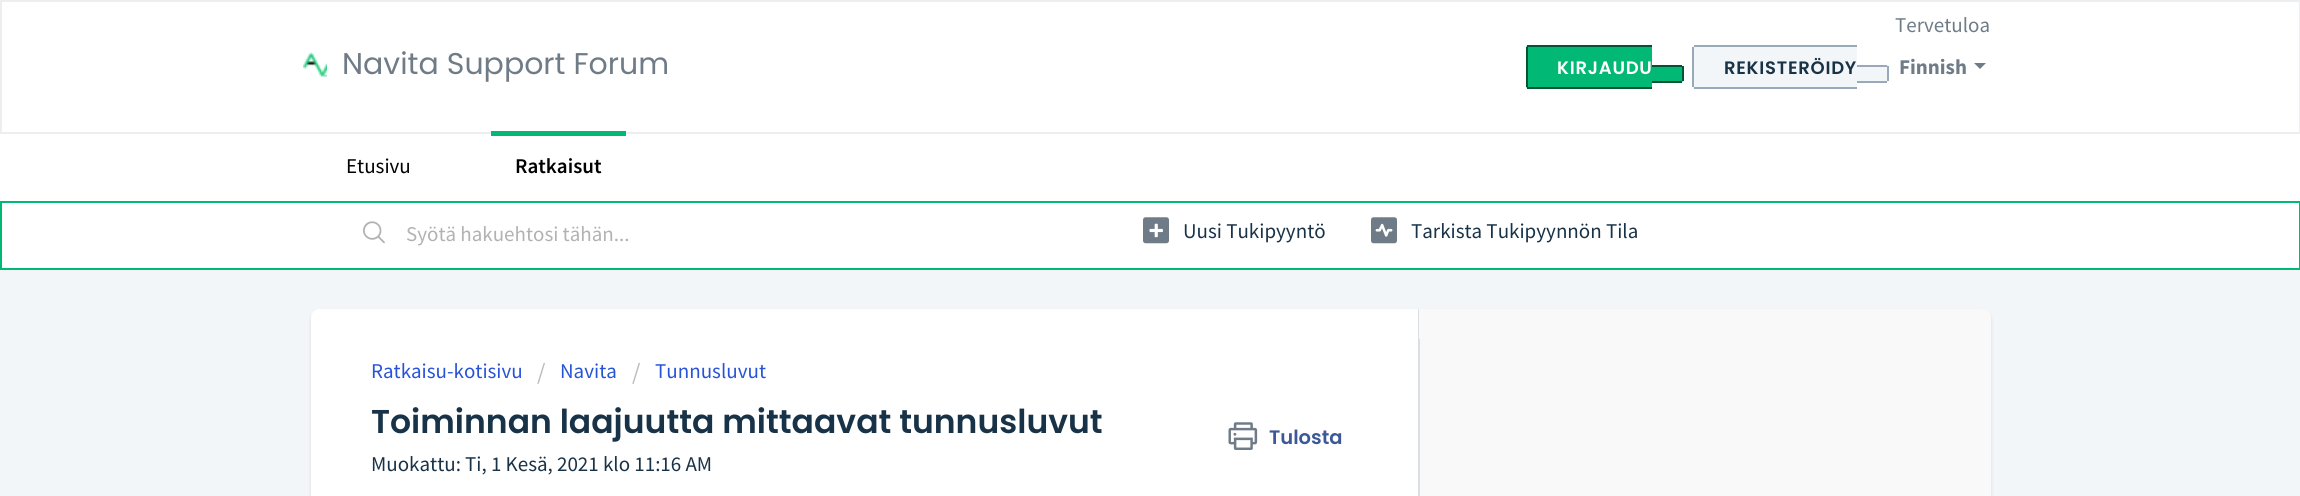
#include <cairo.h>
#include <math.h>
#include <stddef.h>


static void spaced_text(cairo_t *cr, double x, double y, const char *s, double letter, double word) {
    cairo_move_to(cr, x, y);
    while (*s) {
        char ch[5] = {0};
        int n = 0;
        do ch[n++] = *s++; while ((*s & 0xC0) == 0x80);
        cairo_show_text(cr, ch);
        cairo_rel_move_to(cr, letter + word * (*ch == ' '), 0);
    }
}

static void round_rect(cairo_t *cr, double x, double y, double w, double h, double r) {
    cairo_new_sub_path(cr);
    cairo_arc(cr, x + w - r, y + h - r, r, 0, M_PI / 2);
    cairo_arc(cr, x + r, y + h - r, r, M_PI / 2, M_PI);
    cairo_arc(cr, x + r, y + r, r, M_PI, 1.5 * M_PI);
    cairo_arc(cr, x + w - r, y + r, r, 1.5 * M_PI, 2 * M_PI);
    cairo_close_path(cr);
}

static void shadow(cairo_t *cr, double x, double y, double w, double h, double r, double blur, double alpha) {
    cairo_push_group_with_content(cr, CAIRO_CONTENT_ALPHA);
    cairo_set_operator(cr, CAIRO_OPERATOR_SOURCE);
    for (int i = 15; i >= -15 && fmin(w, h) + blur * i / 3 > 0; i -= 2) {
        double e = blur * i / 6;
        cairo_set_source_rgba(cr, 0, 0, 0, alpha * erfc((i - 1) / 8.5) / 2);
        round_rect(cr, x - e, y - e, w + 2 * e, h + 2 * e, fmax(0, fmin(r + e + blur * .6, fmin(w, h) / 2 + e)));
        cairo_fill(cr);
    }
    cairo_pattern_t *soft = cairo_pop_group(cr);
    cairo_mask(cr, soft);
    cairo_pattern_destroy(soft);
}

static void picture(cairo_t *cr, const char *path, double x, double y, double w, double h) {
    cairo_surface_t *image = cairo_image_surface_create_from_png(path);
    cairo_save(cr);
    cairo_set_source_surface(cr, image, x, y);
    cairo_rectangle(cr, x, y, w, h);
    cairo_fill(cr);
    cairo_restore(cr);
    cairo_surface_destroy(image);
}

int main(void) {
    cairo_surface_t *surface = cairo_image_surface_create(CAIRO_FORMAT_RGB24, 2300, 496);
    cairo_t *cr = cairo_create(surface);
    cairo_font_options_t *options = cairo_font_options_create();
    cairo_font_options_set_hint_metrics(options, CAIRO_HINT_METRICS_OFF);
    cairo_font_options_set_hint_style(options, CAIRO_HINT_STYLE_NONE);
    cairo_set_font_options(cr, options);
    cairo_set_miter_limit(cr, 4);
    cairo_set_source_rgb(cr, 0.953, 0.961, 0.969);
    cairo_paint(cr);
    cairo_set_source_rgb(cr, 1, 1, 1);
    cairo_rectangle(cr, 1, 1, 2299, 132);
    cairo_fill_preserve(cr);
    cairo_set_source_rgb(cr, 0.922, 0.933, 0.941);
    cairo_stroke(cr);
    picture(cr, "img1.png", 303, 52, 24, 25);
    cairo_select_font_face(cr, "Poppins", CAIRO_FONT_SLANT_NORMAL, CAIRO_FONT_WEIGHT_NORMAL);
    cairo_set_font_size(cr, 30);
    cairo_set_source_rgb(cr, 0.435, 0.486, 0.529);
    cairo_move_to(cr, 342, 74);
    cairo_show_text(cr, "Navita Support Forum");
    cairo_select_font_face(cr, "Source Sans Pro", CAIRO_FONT_SLANT_NORMAL, CAIRO_FONT_WEIGHT_NORMAL);
    cairo_set_font_size(cr, 21);
    cairo_move_to(cr, 1895, 32);
    cairo_show_text(cr, "Tervetuloa");
    cairo_set_source_rgb(cr, 0.008, 0.722, 0.459);
    cairo_new_path(cr);
    cairo_move_to(cr, 1529, 45);
    cairo_line_to(cr, 1652, 45);
    cairo_line_to(cr, 1652, 89);
    cairo_line_to(cr, 1529, 89);
    cairo_curve_to(cr, 1527.5, 89, 1526, 87.5, 1526, 86);
    cairo_line_to(cr, 1526, 48);
    cairo_curve_to(cr, 1526, 46.5, 1527.5, 45, 1529, 45);
    cairo_close_path(cr);
    cairo_fill(cr);
    cairo_select_font_face(cr, "Poppins SemiBold", CAIRO_FONT_SLANT_NORMAL, CAIRO_FONT_WEIGHT_NORMAL);
    cairo_set_font_size(cr, 18);
    cairo_set_source_rgb(cr, 1, 1, 1);
    spaced_text(cr, 1557, 74, "KIRJAUDU", 0.75, 0);
    cairo_set_source_rgb(cr, 0.004, 0.325, 0.208);
    cairo_rectangle(cr, 1527, 45, 125, 2);
    cairo_fill(cr);
    cairo_rectangle(cr, 1527, 87, 125, 2);
    cairo_fill(cr);
    cairo_rectangle(cr, 1526, 47, 2, 40);
    cairo_fill(cr);
    cairo_set_source_rgb(cr, 0.008, 0.722, 0.459);
    cairo_new_path(cr);
    cairo_move_to(cr, 1652, 65);
    cairo_line_to(cr, 1680, 65);
    cairo_curve_to(cr, 1681.5, 65, 1683, 66.5, 1683, 68);
    cairo_line_to(cr, 1683, 80);
    cairo_curve_to(cr, 1683, 81.5, 1681.5, 83, 1680, 83);
    cairo_line_to(cr, 1652, 83);
    cairo_close_path(cr);
    cairo_fill(cr);
    cairo_set_source_rgb(cr, 0.004, 0.325, 0.208);
    cairo_rectangle(cr, 1652, 65, 30, 2);
    cairo_fill(cr);
    cairo_rectangle(cr, 1682, 66, 2, 15);
    cairo_fill(cr);
    cairo_rectangle(cr, 1652, 81, 30, 2);
    cairo_fill(cr);
    cairo_set_source_rgb(cr, 0.953, 0.961, 0.969);
    cairo_new_path(cr);
    cairo_move_to(cr, 1695, 45);
    cairo_line_to(cr, 1857, 45);
    cairo_line_to(cr, 1857, 89);
    cairo_line_to(cr, 1695, 89);
    cairo_curve_to(cr, 1693.5, 89, 1692, 87.5, 1692, 86);
    cairo_line_to(cr, 1692, 48);
    cairo_curve_to(cr, 1692, 46.5, 1693.5, 45, 1695, 45);
    cairo_close_path(cr);
    cairo_fill(cr);
    cairo_set_source_rgb(cr, 0.094, 0.196, 0.278);
    spaced_text(cr, 1724, 74, "REKISTERÖIDY", 0.75, 0);
    cairo_set_source_rgb(cr, 0.592, 0.663, 0.729);
    cairo_rectangle(cr, 1694, 45, 163, 2);
    cairo_fill(cr);
    cairo_rectangle(cr, 1694, 87, 163, 2);
    cairo_fill(cr);
    cairo_rectangle(cr, 1692, 47, 2, 40);
    cairo_fill(cr);
    cairo_set_source_rgb(cr, 0.953, 0.961, 0.969);
    cairo_new_path(cr);
    cairo_move_to(cr, 1857, 65);
    cairo_line_to(cr, 1886, 65);
    cairo_curve_to(cr, 1887.5, 65, 1889, 66.5, 1889, 68);
    cairo_line_to(cr, 1889, 80);
    cairo_curve_to(cr, 1889, 81.5, 1887.5, 83, 1886, 83);
    cairo_line_to(cr, 1857, 83);
    cairo_close_path(cr);
    cairo_fill(cr);
    cairo_set_source_rgb(cr, 0.592, 0.663, 0.729);
    cairo_rectangle(cr, 1857, 65, 30, 2);
    cairo_fill(cr);
    cairo_rectangle(cr, 1887, 66, 2, 15);
    cairo_fill(cr);
    cairo_rectangle(cr, 1857, 81, 30, 2);
    cairo_fill(cr);
    cairo_select_font_face(cr, "Source Sans Pro", CAIRO_FONT_SLANT_NORMAL, CAIRO_FONT_WEIGHT_BOLD);
    cairo_set_font_size(cr, 21);
    cairo_set_source_rgb(cr, 0.435, 0.486, 0.529);
    cairo_move_to(cr, 1899, 74);
    cairo_show_text(cr, "Finnish");
    cairo_new_path(cr);
    cairo_move_to(cr, 1974, 63);
    cairo_line_to(cr, 1986, 63);
    cairo_line_to(cr, 1980, 69);
    cairo_close_path(cr);
    cairo_fill(cr);
    cairo_set_source_rgb(cr, 1, 1, 1);
    cairo_rectangle(cr, 0, 134, 2300, 67);
    cairo_fill(cr);
    cairo_select_font_face(cr, "Source Sans Pro", CAIRO_FONT_SLANT_NORMAL, CAIRO_FONT_WEIGHT_NORMAL);
    cairo_set_source_rgb(cr, 0, 0, 0);
    cairo_move_to(cr, 346, 173);
    cairo_show_text(cr, "Etusivu");
    cairo_set_source_rgb(cr, 0.008, 0.722, 0.459);
    cairo_rectangle(cr, 491, 131, 135, 5);
    cairo_fill(cr);
    cairo_select_font_face(cr, "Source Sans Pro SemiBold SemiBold", CAIRO_FONT_SLANT_NORMAL, CAIRO_FONT_WEIGHT_NORMAL);
    cairo_set_source_rgb(cr, 0, 0, 0);
    cairo_move_to(cr, 515, 173);
    cairo_show_text(cr, "Ratkaisut");
    cairo_set_source_rgb(cr, 1, 1, 1);
    cairo_rectangle(cr, 1, 202, 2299, 67);
    cairo_fill_preserve(cr);
    cairo_set_source_rgb(cr, 0.008, 0.722, 0.459);
    cairo_stroke(cr);
    picture(cr, "img2.png", 363, 221, 22, 23);
    cairo_select_font_face(cr, "Source Sans Pro", CAIRO_FONT_SLANT_NORMAL, CAIRO_FONT_WEIGHT_NORMAL);
    cairo_set_source_rgb(cr, 0.698, 0.698, 0.698);
    cairo_move_to(cr, 406, 241);
    cairo_show_text(cr, "Syötä hakuehtosi tähän...");
    picture(cr, "img3.png", 1143, 217, 26, 27);
    cairo_set_source_rgb(cr, 0.094, 0.196, 0.278);
    cairo_move_to(cr, 1183, 238);
    cairo_show_text(cr, "Uusi Tukipyyntö");
    picture(cr, "img4.png", 1371, 217, 26, 27);
    cairo_move_to(cr, 1411, 238);
    cairo_show_text(cr, "Tarkista Tukipyynnön Tila");
    cairo_set_source_rgb(cr, 0.247, 0.247, 0.267);
    shadow(cr, 311, 311, 1680, 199, 9, 1.5, 0.15);
    cairo_set_source_rgb(cr, 0.973, 0.976, 0.98);
    round_rect(cr, 311, 309, 1680, 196, 9);
    cairo_fill(cr);
    cairo_set_source_rgb(cr, 1, 1, 1);
    cairo_new_path(cr);
    cairo_move_to(cr, 320, 309);
    cairo_line_to(cr, 1419, 309);
    cairo_line_to(cr, 1419, 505);
    cairo_line_to(cr, 320, 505);
    cairo_curve_to(cr, 315, 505, 311, 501, 311, 496);
    cairo_line_to(cr, 311, 318);
    cairo_curve_to(cr, 311, 313, 315, 309, 320, 309);
    cairo_close_path(cr);
    cairo_fill(cr);
    cairo_set_source_rgb(cr, 0.855, 0.875, 0.89);
    cairo_rectangle(cr, 1418, 309, 2, 187);
    cairo_fill(cr);
    cairo_set_source_rgb(cr, 0.973, 0.976, 0.98);
    cairo_new_path(cr);
    cairo_move_to(cr, 1419, 309);
    cairo_line_to(cr, 1982, 309);
    cairo_curve_to(cr, 1987, 309, 1991, 313, 1991, 318);
    cairo_line_to(cr, 1991, 330);
    cairo_curve_to(cr, 1991, 335, 1987, 339, 1982, 339);
    cairo_line_to(cr, 1419, 339);
    cairo_close_path(cr);
    cairo_fill(cr);
    cairo_set_source_rgb(cr, 0.153, 0.325, 0.843);
    cairo_move_to(cr, 371, 378);
    cairo_show_text(cr, "Ratkaisu-kotisivu");
    cairo_set_font_size(cr, 24);
    cairo_set_source_rgb(cr, 0.733, 0.733, 0.733);
    cairo_move_to(cr, 537, 380);
    cairo_show_text(cr, "/");
    cairo_set_font_size(cr, 21);
    cairo_set_source_rgb(cr, 0.153, 0.325, 0.843);
    cairo_move_to(cr, 560, 378);
    cairo_show_text(cr, "Navita");
    cairo_set_font_size(cr, 24);
    cairo_set_source_rgb(cr, 0.733, 0.733, 0.733);
    cairo_move_to(cr, 632, 380);
    cairo_show_text(cr, "/");
    cairo_set_font_size(cr, 21);
    cairo_set_source_rgb(cr, 0.153, 0.325, 0.843);
    cairo_move_to(cr, 655, 378);
    cairo_show_text(cr, "Tunnusluvut");
    cairo_select_font_face(cr, "Poppins SemiBold", CAIRO_FONT_SLANT_NORMAL, CAIRO_FONT_WEIGHT_NORMAL);
    cairo_set_font_size(cr, 33);
    cairo_set_source_rgb(cr, 0.094, 0.196, 0.278);
    cairo_move_to(cr, 371, 433);
    cairo_show_text(cr, "Toiminnan laajuutta mittaavat tunnusluvut");
    picture(cr, "img5.png", 1228, 422, 30, 28);
    cairo_set_font_size(cr, 19.5);
    cairo_set_source_rgb(cr, 0.231, 0.349, 0.596);
    cairo_move_to(cr, 1269, 444);
    cairo_show_text(cr, "Tulosta");
    cairo_select_font_face(cr, "Source Sans Pro", CAIRO_FONT_SLANT_NORMAL, CAIRO_FONT_WEIGHT_NORMAL);
    cairo_set_font_size(cr, 21);
    cairo_set_source_rgb(cr, 0.094, 0.196, 0.278);
    cairo_move_to(cr, 371, 471);
    cairo_show_text(cr, "Muokattu: Ti, 1 Kesä, 2021 klo 11:16 AM");
    cairo_surface_write_to_png(surface, "page.png");
    cairo_font_options_destroy(options);
    cairo_destroy(cr);
    cairo_surface_destroy(surface);
    return 0;
}
